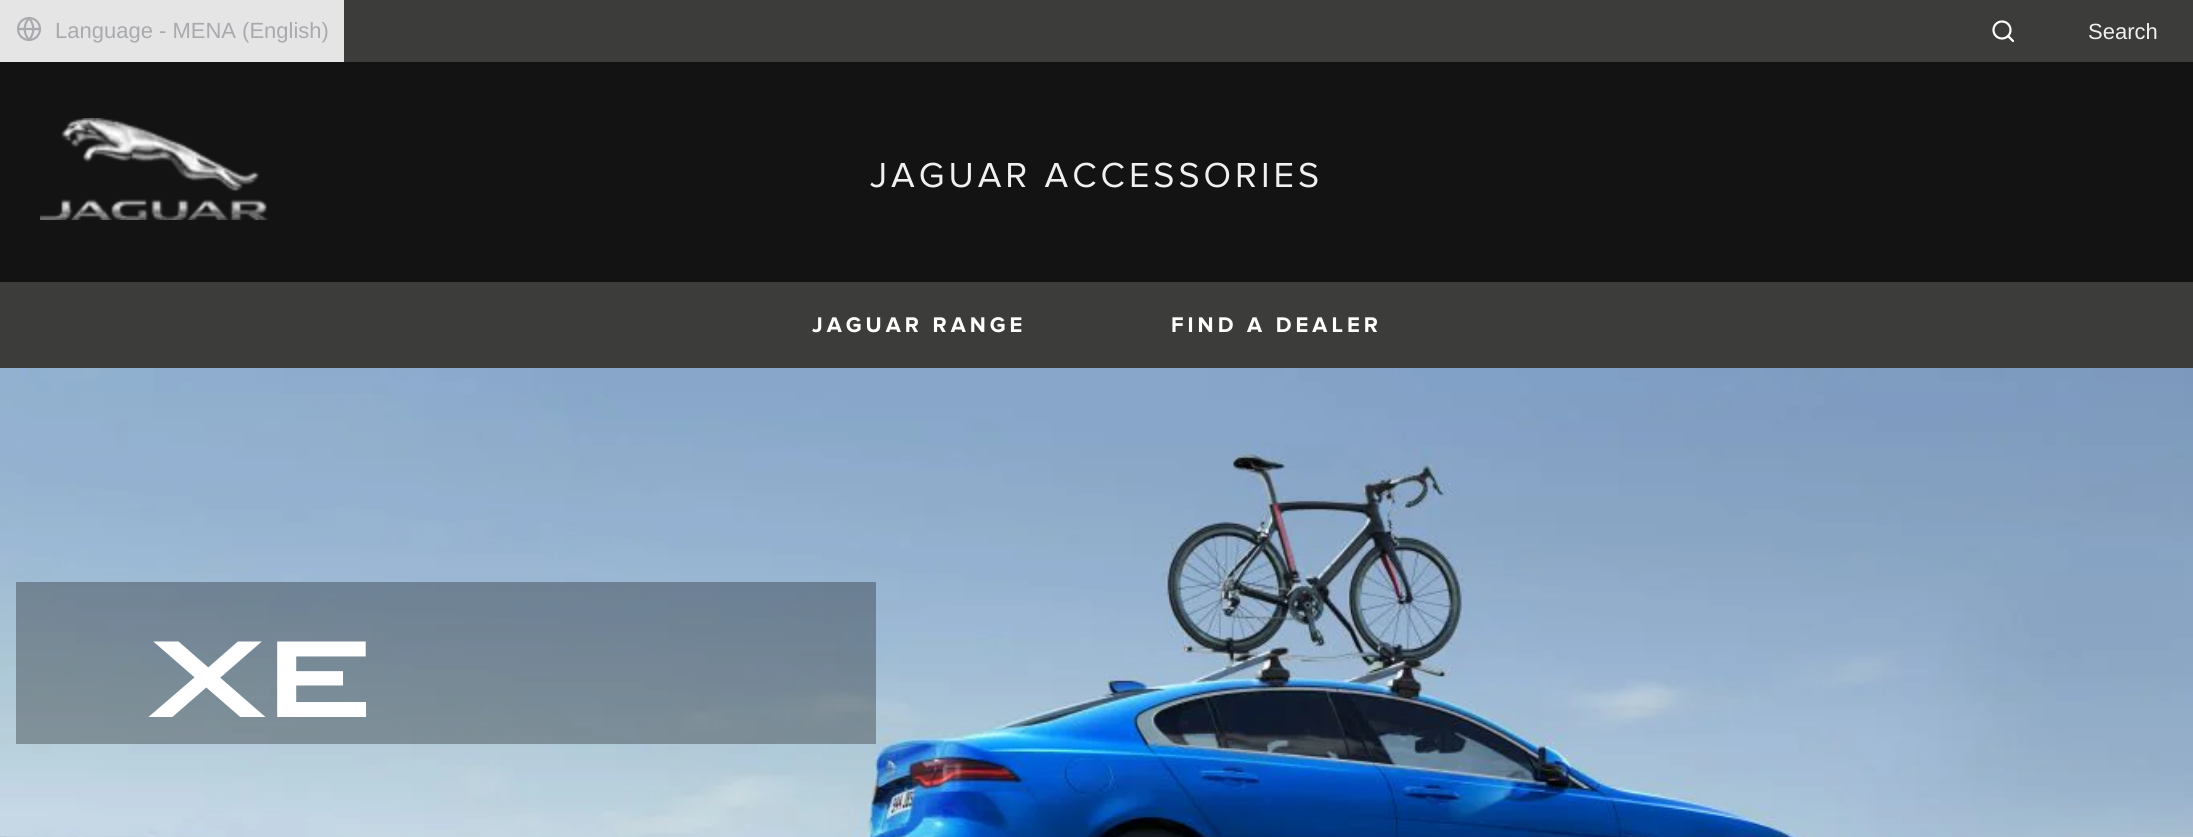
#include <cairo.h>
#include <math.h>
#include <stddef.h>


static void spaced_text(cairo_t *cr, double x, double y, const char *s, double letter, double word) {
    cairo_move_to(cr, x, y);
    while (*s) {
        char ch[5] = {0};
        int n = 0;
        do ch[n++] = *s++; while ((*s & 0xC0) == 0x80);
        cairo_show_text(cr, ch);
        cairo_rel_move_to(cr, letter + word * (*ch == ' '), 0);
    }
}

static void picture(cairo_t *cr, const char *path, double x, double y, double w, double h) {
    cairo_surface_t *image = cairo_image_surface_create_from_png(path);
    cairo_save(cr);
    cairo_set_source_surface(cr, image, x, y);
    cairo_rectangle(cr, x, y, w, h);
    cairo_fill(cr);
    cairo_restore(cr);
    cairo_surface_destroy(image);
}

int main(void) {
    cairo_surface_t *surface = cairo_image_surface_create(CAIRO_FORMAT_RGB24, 2193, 837);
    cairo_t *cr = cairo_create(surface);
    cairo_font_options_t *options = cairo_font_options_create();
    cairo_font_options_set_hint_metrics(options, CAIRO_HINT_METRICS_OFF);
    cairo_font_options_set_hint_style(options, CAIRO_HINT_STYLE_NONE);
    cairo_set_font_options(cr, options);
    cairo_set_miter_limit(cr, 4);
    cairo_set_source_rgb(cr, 0.078, 0.078, 0.078);
    cairo_paint(cr);
    cairo_set_source_rgb(cr, 0.235, 0.235, 0.231);
    cairo_rectangle(cr, 344, 0, 1849, 62);
    cairo_fill(cr);
    cairo_set_source_rgb(cr, 0.898, 0.898, 0.898);
    cairo_rectangle(cr, 0, 0, 344, 62);
    cairo_fill(cr);
    picture(cr, "img1.png", 17, 17, 24, 24);
    cairo_select_font_face(cr, "Liberation Sans", CAIRO_FONT_SLANT_NORMAL, CAIRO_FONT_WEIGHT_NORMAL);
    cairo_set_font_size(cr, 22);
    cairo_set_source_rgb(cr, 0.659, 0.667, 0.682);
    cairo_move_to(cr, 55, 38);
    cairo_show_text(cr, "Language - MENA (English)");
    cairo_new_path(cr);
    cairo_arc(cr, 2002, 30, 8.5, 0, 2 * M_PI);
    cairo_set_source_rgb(cr, 1, 1, 1);
    cairo_set_line_width(cr, 2.2);
    cairo_stroke(cr);
    cairo_new_path(cr);
    cairo_move_to(cr, 2013, 41);
    cairo_line_to(cr, 2008, 36);
    cairo_set_line_cap(cr, CAIRO_LINE_CAP_ROUND);
    cairo_set_line_join(cr, CAIRO_LINE_JOIN_ROUND);
    cairo_stroke(cr);
    cairo_set_source_rgb(cr, 0.941, 0.941, 0.941);
    cairo_move_to(cr, 2088, 39);
    cairo_show_text(cr, "Search");
    picture(cr, "img2.png", 40, 118, 228, 102);
    cairo_select_font_face(cr, "Proxima Nova", CAIRO_FONT_SLANT_NORMAL, CAIRO_FONT_WEIGHT_NORMAL);
    cairo_set_font_size(cr, 36);
    spaced_text(cr, 870, 187, "JAGUAR ACCESSORIES", 4, 0);
    cairo_set_source_rgb(cr, 0.235, 0.235, 0.231);
    cairo_rectangle(cr, 0, 282, 2193, 86);
    cairo_fill(cr);
    cairo_select_font_face(cr, "Proxima Nova", CAIRO_FONT_SLANT_NORMAL, CAIRO_FONT_WEIGHT_BOLD);
    cairo_set_font_size(cr, 22);
    cairo_set_source_rgb(cr, 1, 1, 1);
    spaced_text(cr, 812, 332, "JAGUAR RANGE", 4, 0);
    spaced_text(cr, 1171, 332, "FIND A DEALER", 4, 0);
    picture(cr, "img3.png", 0, 368, 2193, 469);
    cairo_set_source_rgba(cr, 0, 0, 0, 0.3);
    cairo_rectangle(cr, 16, 582, 860, 162);
    cairo_fill(cr);
    cairo_select_font_face(cr, "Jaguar", CAIRO_FONT_SLANT_NORMAL, CAIRO_FONT_WEIGHT_BOLD);
    cairo_set_font_size(cr, 104);
    cairo_set_source_rgb(cr, 1, 1, 1);
    cairo_move_to(cr, 147, 717);
    cairo_show_text(cr, "XE");
    cairo_surface_write_to_png(surface, "page.png");
    cairo_font_options_destroy(options);
    cairo_destroy(cr);
    cairo_surface_destroy(surface);
    return 0;
}
